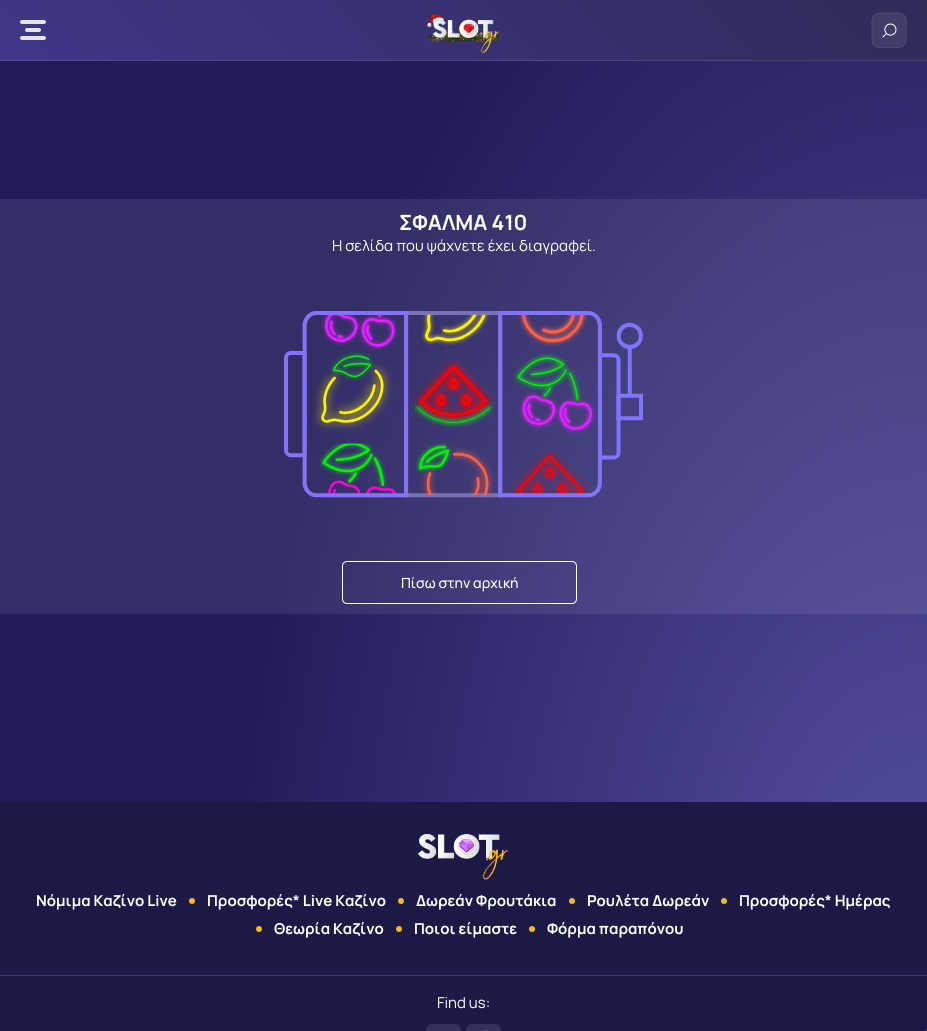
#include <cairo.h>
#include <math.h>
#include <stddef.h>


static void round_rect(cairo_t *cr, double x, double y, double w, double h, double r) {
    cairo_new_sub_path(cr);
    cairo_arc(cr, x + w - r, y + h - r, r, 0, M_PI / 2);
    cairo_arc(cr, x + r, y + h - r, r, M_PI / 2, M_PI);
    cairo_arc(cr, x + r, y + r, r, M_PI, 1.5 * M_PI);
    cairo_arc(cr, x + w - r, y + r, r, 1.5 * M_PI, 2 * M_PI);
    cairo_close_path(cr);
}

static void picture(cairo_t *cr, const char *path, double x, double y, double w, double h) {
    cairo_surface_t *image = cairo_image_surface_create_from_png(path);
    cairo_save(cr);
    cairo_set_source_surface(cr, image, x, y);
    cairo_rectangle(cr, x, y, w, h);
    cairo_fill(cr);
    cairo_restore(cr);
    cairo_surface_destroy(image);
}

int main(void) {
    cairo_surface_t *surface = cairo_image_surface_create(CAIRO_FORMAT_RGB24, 927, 1031);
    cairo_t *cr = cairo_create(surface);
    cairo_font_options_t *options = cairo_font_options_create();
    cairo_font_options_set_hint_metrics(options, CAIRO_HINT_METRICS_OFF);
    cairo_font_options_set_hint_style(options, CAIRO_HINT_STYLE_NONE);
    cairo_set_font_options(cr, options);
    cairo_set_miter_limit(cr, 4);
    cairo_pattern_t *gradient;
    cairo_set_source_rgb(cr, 1, 1, 1);
    cairo_paint(cr);
    gradient = cairo_pattern_create_linear(217, 277, 710, -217);
    cairo_pattern_add_color_stop_rgba(gradient, 0, 0.243, 0.216, 0.533, 1);
    cairo_pattern_add_color_stop_rgba(gradient, 1, 0.184, 0.169, 0.349, 1);
    cairo_set_source(cr, gradient);
    cairo_pattern_destroy(gradient);
    cairo_rectangle(cr, 0, 0, 927, 60);
    cairo_fill(cr);
    gradient = cairo_pattern_create_linear(217, 337, 710, -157);
    cairo_pattern_add_color_stop_rgba(gradient, 0, 0.325, 0.302, 0.584, 1);
    cairo_pattern_add_color_stop_rgba(gradient, 1, 0.275, 0.259, 0.42, 1);
    cairo_set_source(cr, gradient);
    cairo_pattern_destroy(gradient);
    cairo_rectangle(cr, 0, 60, 927, 1);
    cairo_fill(cr);
    picture(cr, "img1.png", 20, 20, 26, 20);
    picture(cr, "img2.png", 427, 14, 74, 39);
    picture(cr, "img3.png", 871, 12, 36, 36);
    gradient = cairo_pattern_create_radial(0, 0, 0, 0, 0, 1);
    cairo_pattern_set_matrix(gradient, &(cairo_matrix_t){1.0 / 704, 0, 0, 1.0 / 1282, -1.0 * 927 / 704, -1.0 * 1031 / 1282});
    cairo_pattern_add_color_stop_rgba(gradient, 0.2, 0.302, 0.278, 0.592, 1);
    cairo_pattern_add_color_stop_rgba(gradient, 1, 0.129, 0.11, 0.345, 1);
    cairo_set_source(cr, gradient);
    cairo_pattern_destroy(gradient);
    cairo_rectangle(cr, 0, 61, 927, 741);
    cairo_fill(cr);
    gradient = cairo_pattern_create_radial(0, 0, 0, 0, 0, 1);
    cairo_pattern_set_matrix(gradient, &(cairo_matrix_t){1.0 / 704, 0, 0, 1.0 / 1282, -1.0 * 927 / 704, -1.0 * 1031 / 1282});
    cairo_pattern_add_color_stop_rgba(gradient, 0.2, 0.357, 0.337, 0.624, 1);
    cairo_pattern_add_color_stop_rgba(gradient, 1, 0.2, 0.18, 0.396, 1);
    cairo_set_source(cr, gradient);
    cairo_pattern_destroy(gradient);
    cairo_rectangle(cr, 0, 199, 927, 415);
    cairo_fill(cr);
    cairo_select_font_face(cr, "Manrope", CAIRO_FONT_SLANT_NORMAL, CAIRO_FONT_WEIGHT_BOLD);
    cairo_set_font_size(cr, 21);
    cairo_set_source_rgb(cr, 1, 1, 1);
    cairo_move_to(cr, 399, 230);
    cairo_show_text(cr, "ΣΦΑΛΜΑ 410");
    cairo_select_font_face(cr, "Manrope", CAIRO_FONT_SLANT_NORMAL, CAIRO_FONT_WEIGHT_NORMAL);
    cairo_set_font_size(cr, 15);
    cairo_move_to(cr, 332, 251);
    cairo_show_text(cr, "Η σελίδα που ψάχνετε έχει διαγραφεί.");
    picture(cr, "img4.png", 284, 311, 359, 187);
    round_rect(cr, 342.5, 561.5, 234, 42, 4.5);
    cairo_set_line_width(cr, 1);
    cairo_stroke(cr);
    cairo_select_font_face(cr, "Manrope Medium", CAIRO_FONT_SLANT_NORMAL, CAIRO_FONT_WEIGHT_NORMAL);
    cairo_set_font_size(cr, 14);
    cairo_move_to(cr, 401, 588);
    cairo_show_text(cr, "Πίσω στην αρχική");
    cairo_set_source_rgb(cr, 0.11, 0.098, 0.275);
    cairo_rectangle(cr, 0, 802, 927, 229);
    cairo_fill(cr);
    cairo_set_source_rgb(cr, 0.239, 0.231, 0.427);
    cairo_rectangle(cr, 0, 975, 927, 1);
    cairo_fill(cr);
    picture(cr, "img5.png", 418, 834, 91, 46);
    cairo_select_font_face(cr, "Manrope", CAIRO_FONT_SLANT_NORMAL, CAIRO_FONT_WEIGHT_BOLD);
    cairo_set_font_size(cr, 15);
    cairo_set_source_rgb(cr, 1, 1, 1);
    cairo_move_to(cr, 36, 906);
    cairo_show_text(cr, "Νόμιμα Καζίνο Live");
    cairo_set_source_rgb(cr, 0.992, 0.725, 0.075);
    cairo_new_path(cr);
    cairo_arc(cr, 192, 901, 3, 0, 2 * M_PI);
    cairo_fill(cr);
    cairo_set_source_rgb(cr, 1, 1, 1);
    cairo_move_to(cr, 207, 906);
    cairo_show_text(cr, "Προσφορές* Live Καζίνο");
    cairo_set_source_rgb(cr, 0.992, 0.725, 0.075);
    cairo_new_path(cr);
    cairo_arc(cr, 401, 901, 3, 0, 2 * M_PI);
    cairo_fill(cr);
    cairo_set_source_rgb(cr, 1, 1, 1);
    cairo_move_to(cr, 416, 906);
    cairo_show_text(cr, "Δωρεάν Φρουτάκια");
    cairo_set_source_rgb(cr, 0.992, 0.725, 0.075);
    cairo_new_path(cr);
    cairo_arc(cr, 572, 901, 3, 0, 2 * M_PI);
    cairo_fill(cr);
    cairo_set_source_rgb(cr, 1, 1, 1);
    cairo_move_to(cr, 587, 906);
    cairo_show_text(cr, "Ρουλέτα Δωρεάν");
    cairo_set_source_rgb(cr, 0.992, 0.725, 0.075);
    cairo_new_path(cr);
    cairo_arc(cr, 724, 901, 3, 0, 2 * M_PI);
    cairo_fill(cr);
    cairo_set_source_rgb(cr, 1, 1, 1);
    cairo_move_to(cr, 739, 906);
    cairo_show_text(cr, "Προσφορές* Ημέρας");
    cairo_set_source_rgb(cr, 0.992, 0.725, 0.075);
    cairo_new_path(cr);
    cairo_arc(cr, 259, 929, 3, 0, 2 * M_PI);
    cairo_fill(cr);
    cairo_set_source_rgb(cr, 1, 1, 1);
    cairo_move_to(cr, 274, 934);
    cairo_show_text(cr, "Θεωρία Καζίνο");
    cairo_set_source_rgb(cr, 0.992, 0.725, 0.075);
    cairo_new_path(cr);
    cairo_arc(cr, 399, 929, 3, 0, 2 * M_PI);
    cairo_fill(cr);
    cairo_set_source_rgb(cr, 1, 1, 1);
    cairo_move_to(cr, 414, 934);
    cairo_show_text(cr, "Ποιοι είμαστε");
    cairo_set_source_rgb(cr, 0.992, 0.725, 0.075);
    cairo_new_path(cr);
    cairo_arc(cr, 532, 929, 3, 0, 2 * M_PI);
    cairo_fill(cr);
    cairo_set_source_rgb(cr, 1, 1, 1);
    cairo_move_to(cr, 547, 934);
    cairo_show_text(cr, "Φόρμα παραπόνου");
    cairo_select_font_face(cr, "Manrope", CAIRO_FONT_SLANT_NORMAL, CAIRO_FONT_WEIGHT_NORMAL);
    cairo_move_to(cr, 437, 1008);
    cairo_show_text(cr, "Find us:");
    picture(cr, "img6.png", 426, 1024, 35, 7);
    picture(cr, "img7.png", 466, 1024, 35, 7);
    cairo_set_source_rgb(cr, 0.365, 0.365, 0.38);
    cairo_rectangle(cr, 926, 1030, 1, 1);
    cairo_fill(cr);
    cairo_surface_write_to_png(surface, "page.png");
    cairo_font_options_destroy(options);
    cairo_destroy(cr);
    cairo_surface_destroy(surface);
    return 0;
}
